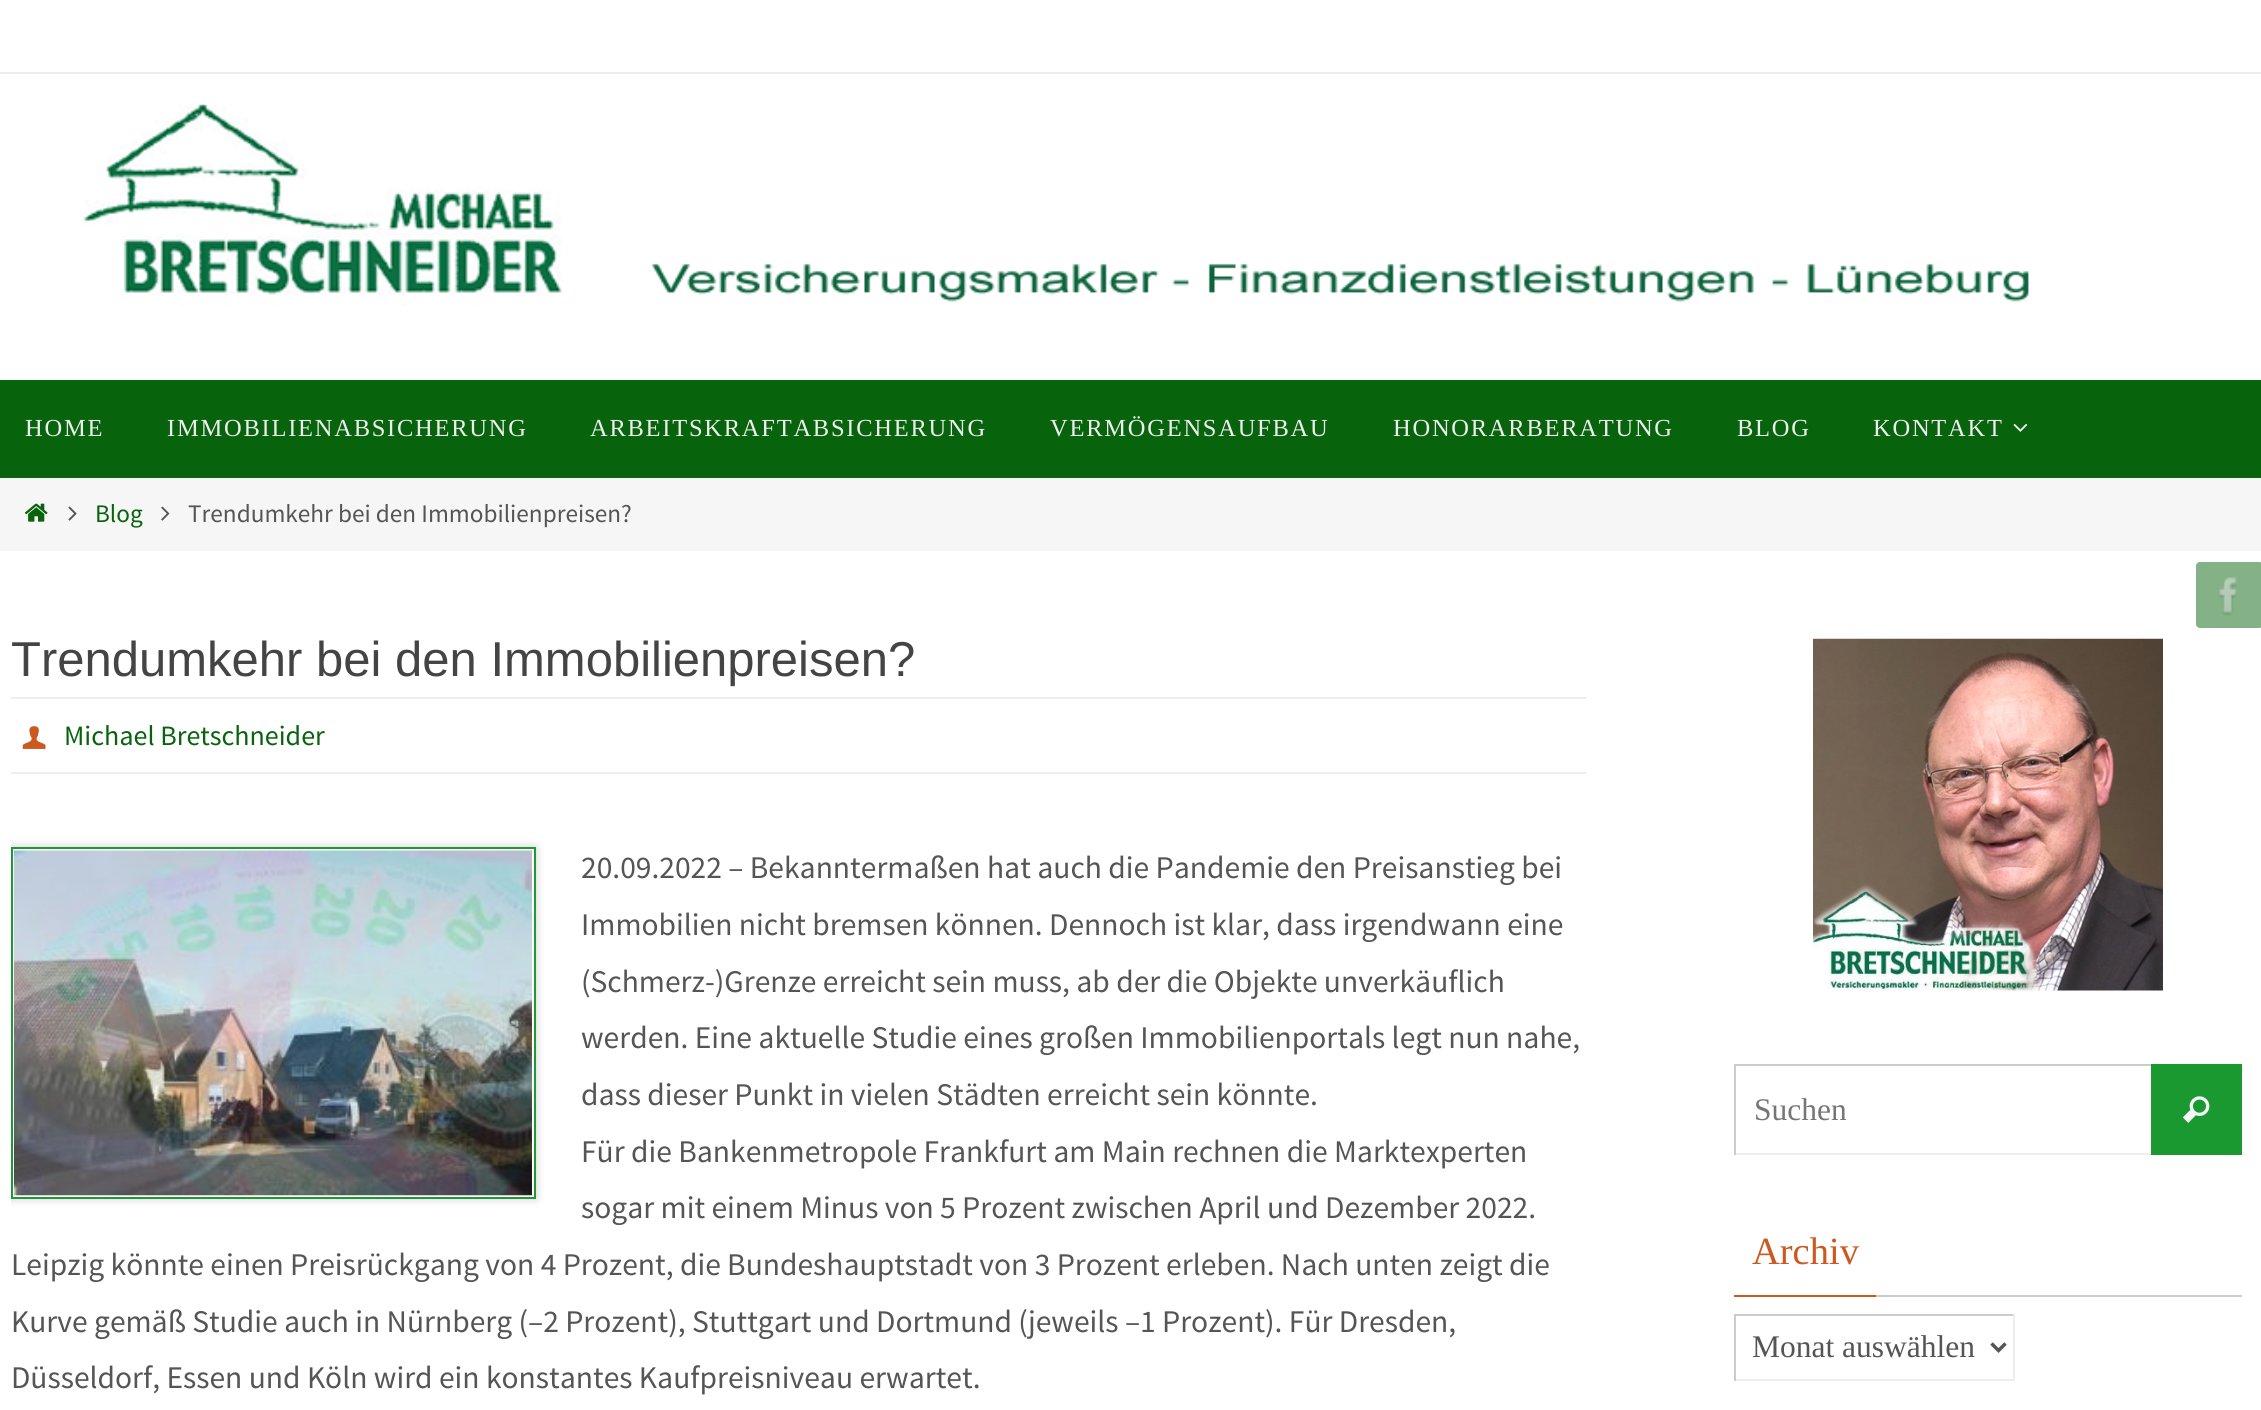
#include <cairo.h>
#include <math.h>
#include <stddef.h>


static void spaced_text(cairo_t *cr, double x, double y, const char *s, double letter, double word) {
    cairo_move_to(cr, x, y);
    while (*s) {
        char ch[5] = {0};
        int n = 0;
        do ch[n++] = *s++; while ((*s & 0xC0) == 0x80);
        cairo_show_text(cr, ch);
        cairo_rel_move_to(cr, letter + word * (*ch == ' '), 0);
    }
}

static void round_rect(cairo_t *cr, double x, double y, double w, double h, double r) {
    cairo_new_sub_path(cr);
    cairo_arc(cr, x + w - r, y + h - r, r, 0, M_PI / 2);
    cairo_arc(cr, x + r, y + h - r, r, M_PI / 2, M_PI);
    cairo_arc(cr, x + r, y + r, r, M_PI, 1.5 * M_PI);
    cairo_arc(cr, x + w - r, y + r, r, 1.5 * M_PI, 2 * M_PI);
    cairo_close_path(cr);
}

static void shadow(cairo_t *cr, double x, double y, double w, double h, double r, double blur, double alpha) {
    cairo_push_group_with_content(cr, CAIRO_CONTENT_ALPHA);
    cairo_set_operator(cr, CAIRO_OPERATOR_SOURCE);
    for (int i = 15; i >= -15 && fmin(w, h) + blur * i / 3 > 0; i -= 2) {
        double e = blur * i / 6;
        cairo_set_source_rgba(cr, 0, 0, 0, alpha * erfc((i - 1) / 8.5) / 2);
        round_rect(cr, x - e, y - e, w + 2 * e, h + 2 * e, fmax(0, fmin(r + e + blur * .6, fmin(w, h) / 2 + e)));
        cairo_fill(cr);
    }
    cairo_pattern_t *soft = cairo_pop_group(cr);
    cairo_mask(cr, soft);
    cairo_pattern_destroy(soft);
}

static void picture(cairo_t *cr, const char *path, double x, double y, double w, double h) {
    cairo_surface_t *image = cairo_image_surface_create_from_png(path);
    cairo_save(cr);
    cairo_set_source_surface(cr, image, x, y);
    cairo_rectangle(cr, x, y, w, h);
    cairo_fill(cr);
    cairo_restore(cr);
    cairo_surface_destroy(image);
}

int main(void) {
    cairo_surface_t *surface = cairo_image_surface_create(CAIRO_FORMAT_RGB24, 2261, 1410);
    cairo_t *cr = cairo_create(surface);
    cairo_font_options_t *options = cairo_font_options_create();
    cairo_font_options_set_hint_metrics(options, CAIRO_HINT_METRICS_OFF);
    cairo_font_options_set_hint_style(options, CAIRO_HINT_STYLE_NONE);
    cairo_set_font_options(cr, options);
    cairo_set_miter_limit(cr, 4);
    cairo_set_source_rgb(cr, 1, 1, 1);
    cairo_paint(cr);
    cairo_set_source_rgb(cr, 0.922, 0.922, 0.922);
    cairo_rectangle(cr, 0, 72, 2261, 2);
    cairo_fill(cr);
    picture(cr, "img1.png", 83, 104, 1946, 202);
    cairo_set_source_rgb(cr, 0.035, 0.388, 0.051);
    cairo_rectangle(cr, 0, 380, 2261, 98);
    cairo_fill(cr);
    cairo_select_font_face(cr, "Liberation Serif", CAIRO_FONT_SLANT_NORMAL, CAIRO_FONT_WEIGHT_NORMAL);
    cairo_set_font_size(cr, 24.5);
    cairo_set_source_rgb(cr, 0.933, 0.933, 0.933);
    spaced_text(cr, 25, 436, "HOME", 1.75, 0);
    spaced_text(cr, 167, 436, "IMMOBILIENABSICHERUNG", 1.75, 0);
    spaced_text(cr, 590, 436, "ARBEITSKRAFTABSICHERUNG", 1.75, 0);
    spaced_text(cr, 1050, 436, "VERMÖGENSAUFBAU", 1.75, 0);
    spaced_text(cr, 1393, 436, "HONORARBERATUNG", 1.75, 0);
    spaced_text(cr, 1737, 436, "BLOG", 1.75, 0);
    spaced_text(cr, 1873, 436, "KONTAKT", 1.75, 0);
    picture(cr, "img2.png", 2013, 423, 15, 9);
    cairo_set_source_rgb(cr, 0.961, 0.961, 0.961);
    cairo_rectangle(cr, 0, 478, 2261, 73);
    cairo_fill(cr);
    picture(cr, "img3.png", 24, 503, 24, 19);
    picture(cr, "img4.png", 68, 506, 9, 15);
    cairo_select_font_face(cr, "Source Sans Pro", CAIRO_FONT_SLANT_NORMAL, CAIRO_FONT_WEIGHT_NORMAL);
    cairo_set_font_size(cr, 25.25);
    cairo_set_source_rgb(cr, 0.035, 0.388, 0.051);
    cairo_move_to(cr, 95, 522);
    cairo_show_text(cr, "Blog");
    picture(cr, "img5.png", 161, 506, 9, 15);
    cairo_set_source_rgb(cr, 0.333, 0.333, 0.333);
    cairo_move_to(cr, 188, 522);
    cairo_show_text(cr, "Trendumkehr bei den Immobilienpreisen?");
    cairo_set_source_rgb(cr, 0.518, 0.694, 0.525);
    round_rect(cr, 2196, 562, 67, 66, 4);
    cairo_fill(cr);
    picture(cr, "img6.png", 2218, 577, 19, 39);
    cairo_select_font_face(cr, "Liberation Sans", CAIRO_FONT_SLANT_NORMAL, CAIRO_FONT_WEIGHT_NORMAL);
    cairo_set_font_size(cr, 49);
    cairo_set_source_rgb(cr, 0.267, 0.267, 0.267);
    cairo_move_to(cr, 11, 676);
    cairo_show_text(cr, "Trendumkehr bei den Immobilienpreisen?");
    cairo_set_source_rgb(cr, 0.933, 0.933, 0.933);
    cairo_rectangle(cr, 11, 697, 1575, 2);
    cairo_fill(cr);
    cairo_rectangle(cr, 11, 772, 1575, 2);
    cairo_fill(cr);
    picture(cr, "img7.png", 22, 726, 24, 23);
    cairo_select_font_face(cr, "Source Sans Pro", CAIRO_FONT_SLANT_NORMAL, CAIRO_FONT_WEIGHT_NORMAL);
    cairo_set_font_size(cr, 28);
    cairo_set_source_rgb(cr, 0.035, 0.388, 0.051);
    cairo_move_to(cr, 64, 745);
    cairo_show_text(cr, "Michael Bretschneider");
    cairo_save(cr);
    cairo_rectangle(cr, 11, 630, 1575, 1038);
    cairo_clip(cr);
    cairo_set_fill_rule(cr, CAIRO_FILL_RULE_EVEN_ODD);
    cairo_new_path(cr);
    cairo_move_to(cr, 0, 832);
    cairo_line_to(cr, 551, 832);
    cairo_line_to(cr, 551, 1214);
    cairo_line_to(cr, 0, 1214);
    cairo_close_path(cr);
    cairo_move_to(cr, 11, 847);
    cairo_line_to(cr, 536, 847);
    cairo_line_to(cr, 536, 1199);
    cairo_line_to(cr, 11, 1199);
    cairo_close_path(cr);
    cairo_clip(cr);
    cairo_set_source_rgb(cr, 0.804, 0.804, 0.804);
    shadow(cr, 11, 847, 525, 352, 0, 4.5, 1);
    cairo_restore(cr);
    cairo_rectangle(cr, 12, 848, 523, 350);
    cairo_set_source_rgb(cr, 0.114, 0.604, 0.2);
    cairo_stroke(cr);
    picture(cr, "img8.png", 14, 850, 518, 346);
    cairo_set_font_size(cr, 31.5);
    cairo_set_source_rgb(cr, 0.333, 0.333, 0.333);
    cairo_move_to(cr, 581, 878);
    cairo_show_text(cr, "20.09.2022 – Bekanntermaßen hat auch die Pandemie den Preisanstieg bei");
    cairo_move_to(cr, 581, 935);
    cairo_show_text(cr, "Immobilien nicht bremsen können. Dennoch ist klar, dass irgendwann eine");
    cairo_move_to(cr, 581, 992);
    cairo_show_text(cr, "(Schmerz-)Grenze erreicht sein muss, ab der die Objekte unverkäuflich");
    cairo_move_to(cr, 581, 1048);
    cairo_show_text(cr, "werden. Eine aktuelle Studie eines großen Immobilienportals legt nun nahe,");
    cairo_move_to(cr, 581, 1105);
    cairo_show_text(cr, "dass dieser Punkt in vielen Städten erreicht sein könnte.");
    cairo_move_to(cr, 581, 1162);
    cairo_show_text(cr, "Für die Bankenmetropole Frankfurt am Main rechnen die Marktexperten");
    cairo_move_to(cr, 581, 1218);
    cairo_show_text(cr, "sogar mit einem Minus von 5 Prozent zwischen April und Dezember 2022.");
    cairo_move_to(cr, 11, 1275);
    cairo_show_text(cr, "Leipzig könnte einen Preisrückgang von 4 Prozent, die Bundeshauptstadt von 3 Prozent erleben. Nach unten zeigt die");
    cairo_move_to(cr, 11, 1332);
    cairo_show_text(cr, "Kurve gemäß Studie auch in Nürnberg (–2 Prozent), Stuttgart und Dortmund (jeweils –1 Prozent). Für Dresden,");
    cairo_move_to(cr, 11, 1388);
    cairo_show_text(cr, "Düsseldorf, Essen und Köln wird ein konstantes Kaufpreisniveau erwartet.");
    picture(cr, "img9.png", 1813, 638, 350, 353);
    cairo_set_source_rgb(cr, 0.106, 0.6, 0.192);
    cairo_rectangle(cr, 2151, 1064, 91, 91);
    cairo_fill(cr);
    cairo_set_source_rgb(cr, 0.8, 0.8, 0.8);
    cairo_rectangle(cr, 1734, 1064, 417, 2);
    cairo_fill(cr);
    cairo_set_source_rgb(cr, 0.933, 0.933, 0.933);
    cairo_rectangle(cr, 1734, 1153, 417, 2);
    cairo_fill(cr);
    cairo_set_source_rgb(cr, 0.8, 0.8, 0.8);
    cairo_rectangle(cr, 1734, 1064, 2, 91);
    cairo_fill(cr);
    cairo_select_font_face(cr, "Liberation Serif", CAIRO_FONT_SLANT_NORMAL, CAIRO_FONT_WEIGHT_NORMAL);
    cairo_set_source_rgb(cr, 0.459, 0.459, 0.459);
    cairo_move_to(cr, 1754, 1120);
    cairo_show_text(cr, "Suchen");
    picture(cr, "img10.png", 2182, 1096, 28, 27);
    cairo_set_source_rgb(cr, 0.8, 0.8, 0.8);
    cairo_rectangle(cr, 1876, 1295, 366, 2);
    cairo_fill(cr);
    cairo_set_source_rgb(cr, 0.796, 0.349, 0.125);
    cairo_rectangle(cr, 1734, 1295, 142, 2);
    cairo_fill(cr);
    cairo_set_font_size(cr, 38.5);
    cairo_move_to(cr, 1752, 1264);
    cairo_show_text(cr, "Archiv");
    cairo_set_source_rgb(cr, 0.8, 0.8, 0.8);
    cairo_rectangle(cr, 1734, 1314, 280, 2);
    cairo_fill(cr);
    cairo_set_source_rgb(cr, 0.933, 0.933, 0.933);
    cairo_rectangle(cr, 2013, 1314, 2, 67);
    cairo_fill(cr);
    cairo_rectangle(cr, 1734, 1379, 280, 2);
    cairo_fill(cr);
    cairo_set_source_rgb(cr, 0.8, 0.8, 0.8);
    cairo_rectangle(cr, 1734, 1314, 2, 67);
    cairo_fill(cr);
    cairo_new_path(cr);
    cairo_move_to(cr, 1991.5, 1343.5);
    cairo_line_to(cr, 1998.5, 1350.5);
    cairo_line_to(cr, 2005.5, 1343.5);
    cairo_set_source_rgb(cr, 0.333, 0.333, 0.333);
    cairo_set_line_width(cr, 3.5);
    cairo_stroke(cr);
    cairo_set_font_size(cr, 31.5);
    cairo_move_to(cr, 1752, 1357);
    cairo_show_text(cr, "Monat auswählen");
    cairo_surface_write_to_png(surface, "page.png");
    cairo_font_options_destroy(options);
    cairo_destroy(cr);
    cairo_surface_destroy(surface);
    return 0;
}
